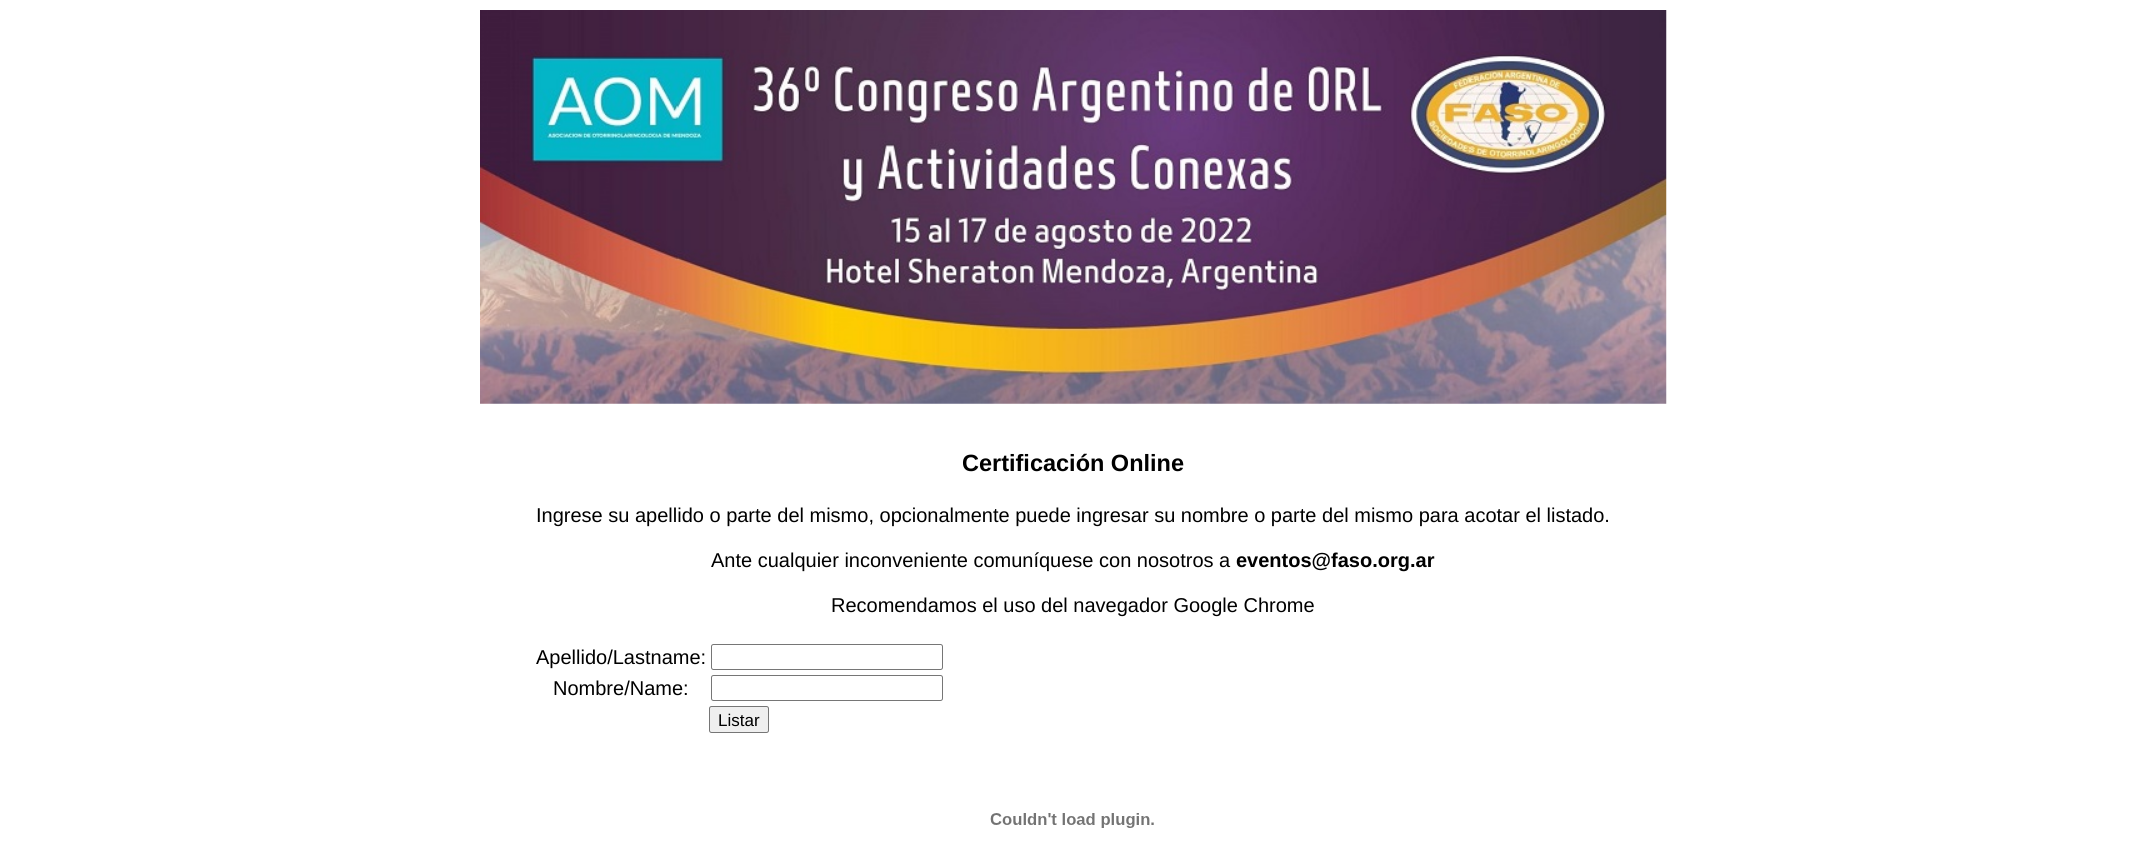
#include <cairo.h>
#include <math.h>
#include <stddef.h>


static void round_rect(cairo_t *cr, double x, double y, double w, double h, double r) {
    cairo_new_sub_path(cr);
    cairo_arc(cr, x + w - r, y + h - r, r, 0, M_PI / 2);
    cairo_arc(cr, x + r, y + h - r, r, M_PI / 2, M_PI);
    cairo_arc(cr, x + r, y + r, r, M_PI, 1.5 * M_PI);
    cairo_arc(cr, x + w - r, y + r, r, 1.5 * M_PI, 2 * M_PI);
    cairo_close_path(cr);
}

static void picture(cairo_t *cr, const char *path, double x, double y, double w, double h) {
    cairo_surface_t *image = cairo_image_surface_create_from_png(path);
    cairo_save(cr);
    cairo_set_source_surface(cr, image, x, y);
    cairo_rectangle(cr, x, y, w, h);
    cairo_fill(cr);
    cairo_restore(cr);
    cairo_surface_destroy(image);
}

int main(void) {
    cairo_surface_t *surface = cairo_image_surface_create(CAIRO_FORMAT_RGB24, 2145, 868);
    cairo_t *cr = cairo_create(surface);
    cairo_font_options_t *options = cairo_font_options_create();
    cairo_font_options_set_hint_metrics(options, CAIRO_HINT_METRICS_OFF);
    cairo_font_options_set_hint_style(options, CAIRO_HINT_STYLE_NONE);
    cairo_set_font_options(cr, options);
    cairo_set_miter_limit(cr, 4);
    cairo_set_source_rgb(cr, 1, 1, 1);
    cairo_paint(cr);
    picture(cr, "img1.png", 480, 10, 1187, 394);
    cairo_select_font_face(cr, "Liberation Sans", CAIRO_FONT_SLANT_NORMAL, CAIRO_FONT_WEIGHT_BOLD);
    cairo_set_font_size(cr, 23.5);
    cairo_set_source_rgb(cr, 0, 0, 0);
    cairo_move_to(cr, 962, 471);
    cairo_show_text(cr, "Certificación Online");
    cairo_select_font_face(cr, "Liberation Sans", CAIRO_FONT_SLANT_NORMAL, CAIRO_FONT_WEIGHT_NORMAL);
    cairo_set_font_size(cr, 20);
    cairo_move_to(cr, 536, 522);
    cairo_show_text(cr, "Ingrese su apellido o parte del mismo, opcionalmente puede ingresar su nombre o parte del mismo para acotar el listado.");
    cairo_move_to(cr, 711, 567);
    cairo_show_text(cr, "Ante cualquier inconveniente comuníquese con nosotros a");
    cairo_select_font_face(cr, "Liberation Sans", CAIRO_FONT_SLANT_NORMAL, CAIRO_FONT_WEIGHT_BOLD);
    cairo_move_to(cr, 1236, 567);
    cairo_show_text(cr, "eventos@faso.org.ar");
    cairo_select_font_face(cr, "Liberation Sans", CAIRO_FONT_SLANT_NORMAL, CAIRO_FONT_WEIGHT_NORMAL);
    cairo_move_to(cr, 831, 612);
    cairo_show_text(cr, "Recomendamos el uso del navegador Google Chrome");
    cairo_move_to(cr, 536, 664);
    cairo_show_text(cr, "Apellido/Lastname:");
    round_rect(cr, 711.5, 644.5, 231, 25, 2);
    cairo_set_source_rgb(cr, 0.463, 0.463, 0.463);
    cairo_set_line_width(cr, 1);
    cairo_stroke(cr);
    cairo_set_source_rgb(cr, 0, 0, 0);
    cairo_move_to(cr, 553, 695);
    cairo_show_text(cr, "Nombre/Name:");
    round_rect(cr, 711.5, 675.5, 231, 25, 2);
    cairo_set_source_rgb(cr, 0.463, 0.463, 0.463);
    cairo_stroke(cr);
    cairo_set_source_rgb(cr, 0.937, 0.937, 0.937);
    round_rect(cr, 709.5, 706.5, 59, 26, 2);
    cairo_fill_preserve(cr);
    cairo_set_source_rgb(cr, 0.463, 0.463, 0.463);
    cairo_stroke(cr);
    cairo_set_font_size(cr, 17);
    cairo_set_source_rgb(cr, 0, 0, 0);
    cairo_move_to(cr, 718, 726);
    cairo_show_text(cr, "Listar");
    picture(cr, "img2.png", 990, 813, 164, 15);
    cairo_surface_write_to_png(surface, "page.png");
    cairo_font_options_destroy(options);
    cairo_destroy(cr);
    cairo_surface_destroy(surface);
    return 0;
}
